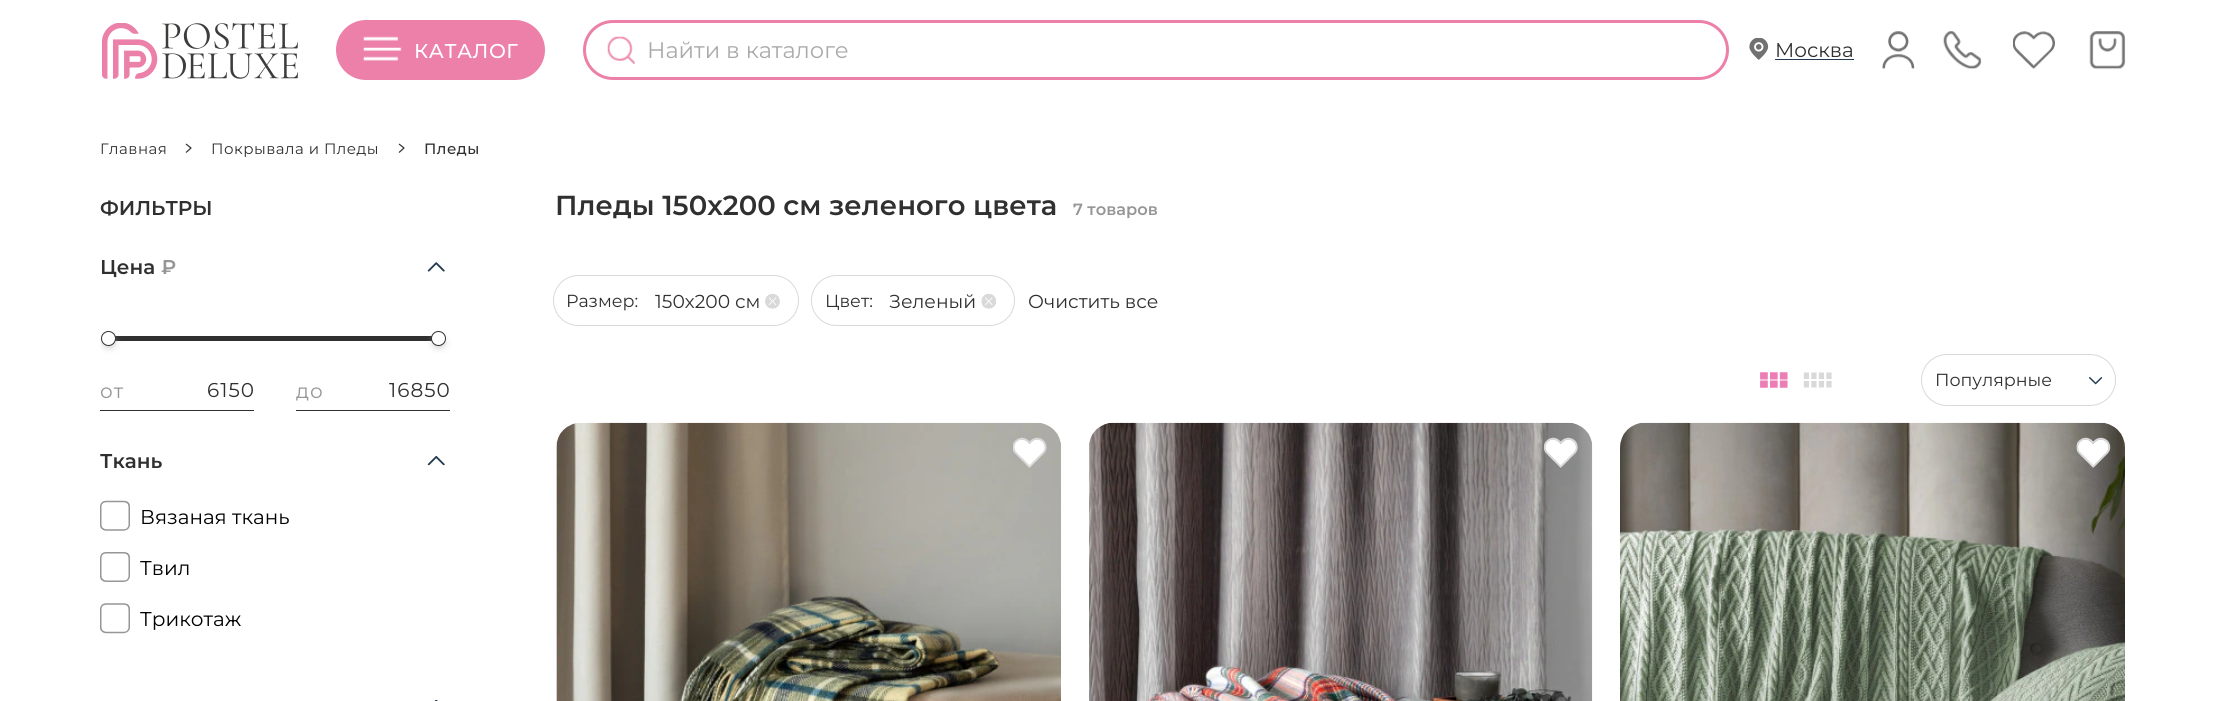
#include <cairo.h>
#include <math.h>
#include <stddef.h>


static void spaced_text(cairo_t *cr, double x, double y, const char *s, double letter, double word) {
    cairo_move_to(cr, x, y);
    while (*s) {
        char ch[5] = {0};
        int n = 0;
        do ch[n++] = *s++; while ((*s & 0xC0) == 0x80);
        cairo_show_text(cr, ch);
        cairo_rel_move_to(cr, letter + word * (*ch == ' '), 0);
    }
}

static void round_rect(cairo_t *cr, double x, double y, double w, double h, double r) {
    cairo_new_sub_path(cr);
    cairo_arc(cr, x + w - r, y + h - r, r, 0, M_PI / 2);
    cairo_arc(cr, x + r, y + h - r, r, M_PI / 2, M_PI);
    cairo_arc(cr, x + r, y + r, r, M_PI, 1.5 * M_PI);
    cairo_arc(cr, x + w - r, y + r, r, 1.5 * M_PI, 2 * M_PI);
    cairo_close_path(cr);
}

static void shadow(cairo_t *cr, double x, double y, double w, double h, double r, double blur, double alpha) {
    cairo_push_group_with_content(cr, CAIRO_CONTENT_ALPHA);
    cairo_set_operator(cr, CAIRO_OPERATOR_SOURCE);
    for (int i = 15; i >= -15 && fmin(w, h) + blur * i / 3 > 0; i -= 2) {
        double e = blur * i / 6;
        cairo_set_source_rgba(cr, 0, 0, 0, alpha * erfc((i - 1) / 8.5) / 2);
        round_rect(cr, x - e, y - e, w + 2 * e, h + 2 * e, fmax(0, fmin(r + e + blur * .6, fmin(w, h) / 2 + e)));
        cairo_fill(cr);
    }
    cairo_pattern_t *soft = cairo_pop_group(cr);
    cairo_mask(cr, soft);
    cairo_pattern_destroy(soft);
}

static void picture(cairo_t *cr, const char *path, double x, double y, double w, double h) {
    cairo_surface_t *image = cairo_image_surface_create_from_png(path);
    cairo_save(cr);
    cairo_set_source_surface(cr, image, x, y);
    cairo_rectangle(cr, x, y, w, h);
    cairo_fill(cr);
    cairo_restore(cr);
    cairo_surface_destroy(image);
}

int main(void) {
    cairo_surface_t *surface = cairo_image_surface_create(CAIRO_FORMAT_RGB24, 2226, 701);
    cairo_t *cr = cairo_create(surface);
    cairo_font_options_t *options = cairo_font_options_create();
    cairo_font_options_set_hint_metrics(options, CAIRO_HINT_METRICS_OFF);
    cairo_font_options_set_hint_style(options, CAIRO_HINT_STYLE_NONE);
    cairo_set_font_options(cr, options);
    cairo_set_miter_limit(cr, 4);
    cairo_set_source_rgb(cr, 1, 1, 1);
    cairo_paint(cr);
    picture(cr, "img1.png", 102, 23, 196, 56);
    cairo_set_source_rgb(cr, 0.922, 0.502, 0.659);
    round_rect(cr, 336, 20, 209, 60, 30);
    cairo_fill(cr);
    picture(cr, "img2.png", 363, 36, 39, 25);
    cairo_select_font_face(cr, "Montserrat Medium", CAIRO_FONT_SLANT_NORMAL, CAIRO_FONT_WEIGHT_NORMAL);
    cairo_set_font_size(cr, 20);
    cairo_set_source_rgb(cr, 1, 1, 1);
    spaced_text(cr, 414, 58, "КАТАЛОГ", 0.5, 0);
    round_rect(cr, 584.5, 21.5, 1143, 57, 28.5);
    cairo_set_source_rgb(cr, 0.922, 0.502, 0.659);
    cairo_set_line_width(cr, 3);
    cairo_stroke(cr);
    picture(cr, "img3.png", 607, 36, 28, 28);
    cairo_select_font_face(cr, "Montserrat", CAIRO_FONT_SLANT_NORMAL, CAIRO_FONT_WEIGHT_NORMAL);
    cairo_set_font_size(cr, 22.5);
    cairo_set_source_rgb(cr, 0.667, 0.667, 0.667);
    cairo_move_to(cr, 647, 58);
    cairo_show_text(cr, "Найти в каталоге");
    picture(cr, "img4.png", 1749, 38, 20, 22);
    cairo_set_font_size(cr, 20);
    cairo_set_source_rgb(cr, 0.188, 0.188, 0.188);
    cairo_move_to(cr, 1775, 57);
    cairo_show_text(cr, "Москва");
    cairo_set_source_rgb(cr, 0.145, 0.231, 0.318);
    cairo_rectangle(cr, 1775, 59, 79, 1);
    cairo_fill(cr);
    picture(cr, "img5.png", 1882, 31, 33, 39);
    picture(cr, "img6.png", 1943, 31, 39, 39);
    picture(cr, "img7.png", 2013, 31, 42, 38);
    picture(cr, "img8.png", 2089, 31, 37, 39);
    cairo_set_font_size(cr, 15);
    cairo_set_source_rgb(cr, 0.188, 0.188, 0.188);
    spaced_text(cr, 100, 154, "Главная", 0.5, 0);
    cairo_new_path(cr);
    cairo_move_to(cr, 186, 144);
    cairo_line_to(cr, 191, 148);
    cairo_line_to(cr, 186, 152.5);
    cairo_set_line_width(cr, 1.2);
    cairo_set_line_join(cr, CAIRO_LINE_JOIN_ROUND);
    cairo_stroke(cr);
    spaced_text(cr, 211, 154, "Покрывала и Пледы", 0.5, 0);
    cairo_new_path(cr);
    cairo_move_to(cr, 399, 144);
    cairo_line_to(cr, 404, 148);
    cairo_line_to(cr, 399, 152.5);
    cairo_stroke(cr);
    cairo_select_font_face(cr, "Montserrat Medium", CAIRO_FONT_SLANT_NORMAL, CAIRO_FONT_WEIGHT_NORMAL);
    spaced_text(cr, 424, 154, "Пледы", 0.5, 0);
    cairo_select_font_face(cr, "Montserrat SemiBold", CAIRO_FONT_SLANT_NORMAL, CAIRO_FONT_WEIGHT_NORMAL);
    cairo_set_font_size(cr, 20);
    cairo_move_to(cr, 100, 215);
    cairo_show_text(cr, "ФИЛЬТРЫ");
    cairo_move_to(cr, 100, 274);
    cairo_show_text(cr, "Цена");
    cairo_set_source_rgb(cr, 0.588, 0.588, 0.588);
    cairo_move_to(cr, 161, 274);
    cairo_show_text(cr, "₽");
    picture(cr, "img9.png", 427, 262, 18, 10);
    cairo_set_source_rgb(cr, 0.188, 0.188, 0.188);
    cairo_rectangle(cr, 110, 336, 330, 5);
    cairo_fill(cr);
    cairo_save(cr);
    cairo_rectangle(cr, 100, 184, 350, 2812);
    cairo_clip(cr);
    cairo_set_source_rgb(cr, 0.733, 0.733, 0.733);
    shadow(cr, 105, 339, 8, 7, 3.5, 4, 1);
    cairo_restore(cr);
    cairo_set_source_rgb(cr, 1, 1, 1);
    cairo_arc(cr, 108.5, 338.5, 7, 0, 2 * M_PI);
    cairo_fill_preserve(cr);
    cairo_set_source_rgb(cr, 0.188, 0.188, 0.188);
    cairo_set_line_width(cr, 1);
    cairo_set_line_join(cr, CAIRO_LINE_JOIN_MITER);
    cairo_stroke(cr);
    cairo_set_source_rgb(cr, 0.733, 0.733, 0.733);
    shadow(cr, 435, 339, 8, 7, 3.5, 4, 1);
    cairo_set_source_rgb(cr, 1, 1, 1);
    cairo_arc(cr, 438.5, 338.5, 7, 0, 2 * M_PI);
    cairo_fill_preserve(cr);
    cairo_set_source_rgb(cr, 0.188, 0.188, 0.188);
    cairo_stroke(cr);
    cairo_select_font_face(cr, "Montserrat", CAIRO_FONT_SLANT_NORMAL, CAIRO_FONT_WEIGHT_NORMAL);
    cairo_set_source_rgb(cr, 0.588, 0.588, 0.588);
    spaced_text(cr, 100, 398, "от", 1, 0);
    cairo_set_source_rgb(cr, 0.188, 0.188, 0.188);
    cairo_rectangle(cr, 100, 410, 154, 1);
    cairo_fill(cr);
    spaced_text(cr, 207, 397, "6150", 1, 0);
    cairo_set_source_rgb(cr, 0.588, 0.588, 0.588);
    spaced_text(cr, 296, 398, "до", 1, 0);
    cairo_set_source_rgb(cr, 0.188, 0.188, 0.188);
    cairo_rectangle(cr, 296, 410, 154, 1);
    cairo_fill(cr);
    spaced_text(cr, 389, 397, "16850", 1, 0);
    cairo_select_font_face(cr, "Montserrat SemiBold", CAIRO_FONT_SLANT_NORMAL, CAIRO_FONT_WEIGHT_NORMAL);
    cairo_move_to(cr, 100, 468);
    cairo_show_text(cr, "Ткань");
    picture(cr, "img10.png", 427, 456, 18, 10);
    picture(cr, "img11.png", 100, 500, 30, 31);
    cairo_select_font_face(cr, "Montserrat", CAIRO_FONT_SLANT_NORMAL, CAIRO_FONT_WEIGHT_NORMAL);
    cairo_set_source_rgb(cr, 0, 0, 0);
    cairo_move_to(cr, 140, 524);
    cairo_show_text(cr, "Вязаная ткань");
    picture(cr, "img12.png", 100, 552, 30, 30);
    cairo_move_to(cr, 140, 575);
    cairo_show_text(cr, "Твил");
    picture(cr, "img13.png", 100, 603, 30, 31);
    cairo_move_to(cr, 140, 626);
    cairo_show_text(cr, "Трикотаж");
    picture(cr, "img14.png", 434, 699, 4, 2);
    cairo_select_font_face(cr, "Montserrat SemiBold", CAIRO_FONT_SLANT_NORMAL, CAIRO_FONT_WEIGHT_NORMAL);
    cairo_set_font_size(cr, 27.5);
    cairo_set_source_rgb(cr, 0.188, 0.188, 0.188);
    cairo_move_to(cr, 555, 215);
    cairo_show_text(cr, "Пледы 150х200 см зеленого цвета");
    cairo_set_font_size(cr, 16.25);
    cairo_set_source_rgb(cr, 0.588, 0.588, 0.588);
    cairo_move_to(cr, 1073, 215);
    cairo_show_text(cr, "7 товаров");
    round_rect(cr, 553.5, 275.5, 245, 50, 25);
    cairo_set_source_rgb(cr, 0.851, 0.851, 0.851);
    cairo_stroke(cr);
    cairo_select_font_face(cr, "Montserrat", CAIRO_FONT_SLANT_NORMAL, CAIRO_FONT_WEIGHT_NORMAL);
    cairo_set_font_size(cr, 17.5);
    cairo_set_source_rgb(cr, 0.188, 0.188, 0.188);
    cairo_move_to(cr, 566, 307);
    cairo_show_text(cr, "Размер:");
    cairo_set_font_size(cr, 18.75);
    cairo_move_to(cr, 655, 308);
    cairo_show_text(cr, "150х200 см");
    picture(cr, "img15.png", 765, 294, 15, 15);
    round_rect(cr, 811.5, 275.5, 203, 50, 25);
    cairo_set_source_rgb(cr, 0.851, 0.851, 0.851);
    cairo_stroke(cr);
    cairo_set_font_size(cr, 17.5);
    cairo_set_source_rgb(cr, 0.188, 0.188, 0.188);
    cairo_move_to(cr, 825, 307);
    cairo_show_text(cr, "Цвет:");
    cairo_set_font_size(cr, 18.75);
    cairo_move_to(cr, 889, 308);
    cairo_show_text(cr, "Зеленый");
    picture(cr, "img16.png", 981, 294, 15, 15);
    cairo_move_to(cr, 1028, 308);
    cairo_show_text(cr, "Очистить все");
    picture(cr, "img17.png", 1760, 372, 28, 16);
    picture(cr, "img18.png", 1803, 372, 29, 16);
    round_rect(cr, 1921.5, 354.5, 194, 51, 25.5);
    cairo_set_source_rgb(cr, 0.851, 0.851, 0.851);
    cairo_stroke(cr);
    cairo_set_font_size(cr, 17.5);
    cairo_set_source_rgb(cr, 0.188, 0.188, 0.188);
    cairo_move_to(cr, 1935, 386);
    cairo_show_text(cr, "Популярные");
    picture(cr, "img19.png", 2089, 377, 14, 8);
    picture(cr, "img20.png", 556, 422, 505, 279);
    picture(cr, "img21.png", 1013, 437, 34, 31);
    picture(cr, "img22.png", 1089, 422, 504, 279);
    picture(cr, "img23.png", 1544, 437, 34, 31);
    picture(cr, "img24.png", 1620, 422, 505, 279);
    picture(cr, "img25.png", 2076, 437, 35, 31);
    cairo_surface_write_to_png(surface, "page.png");
    cairo_font_options_destroy(options);
    cairo_destroy(cr);
    cairo_surface_destroy(surface);
    return 0;
}
